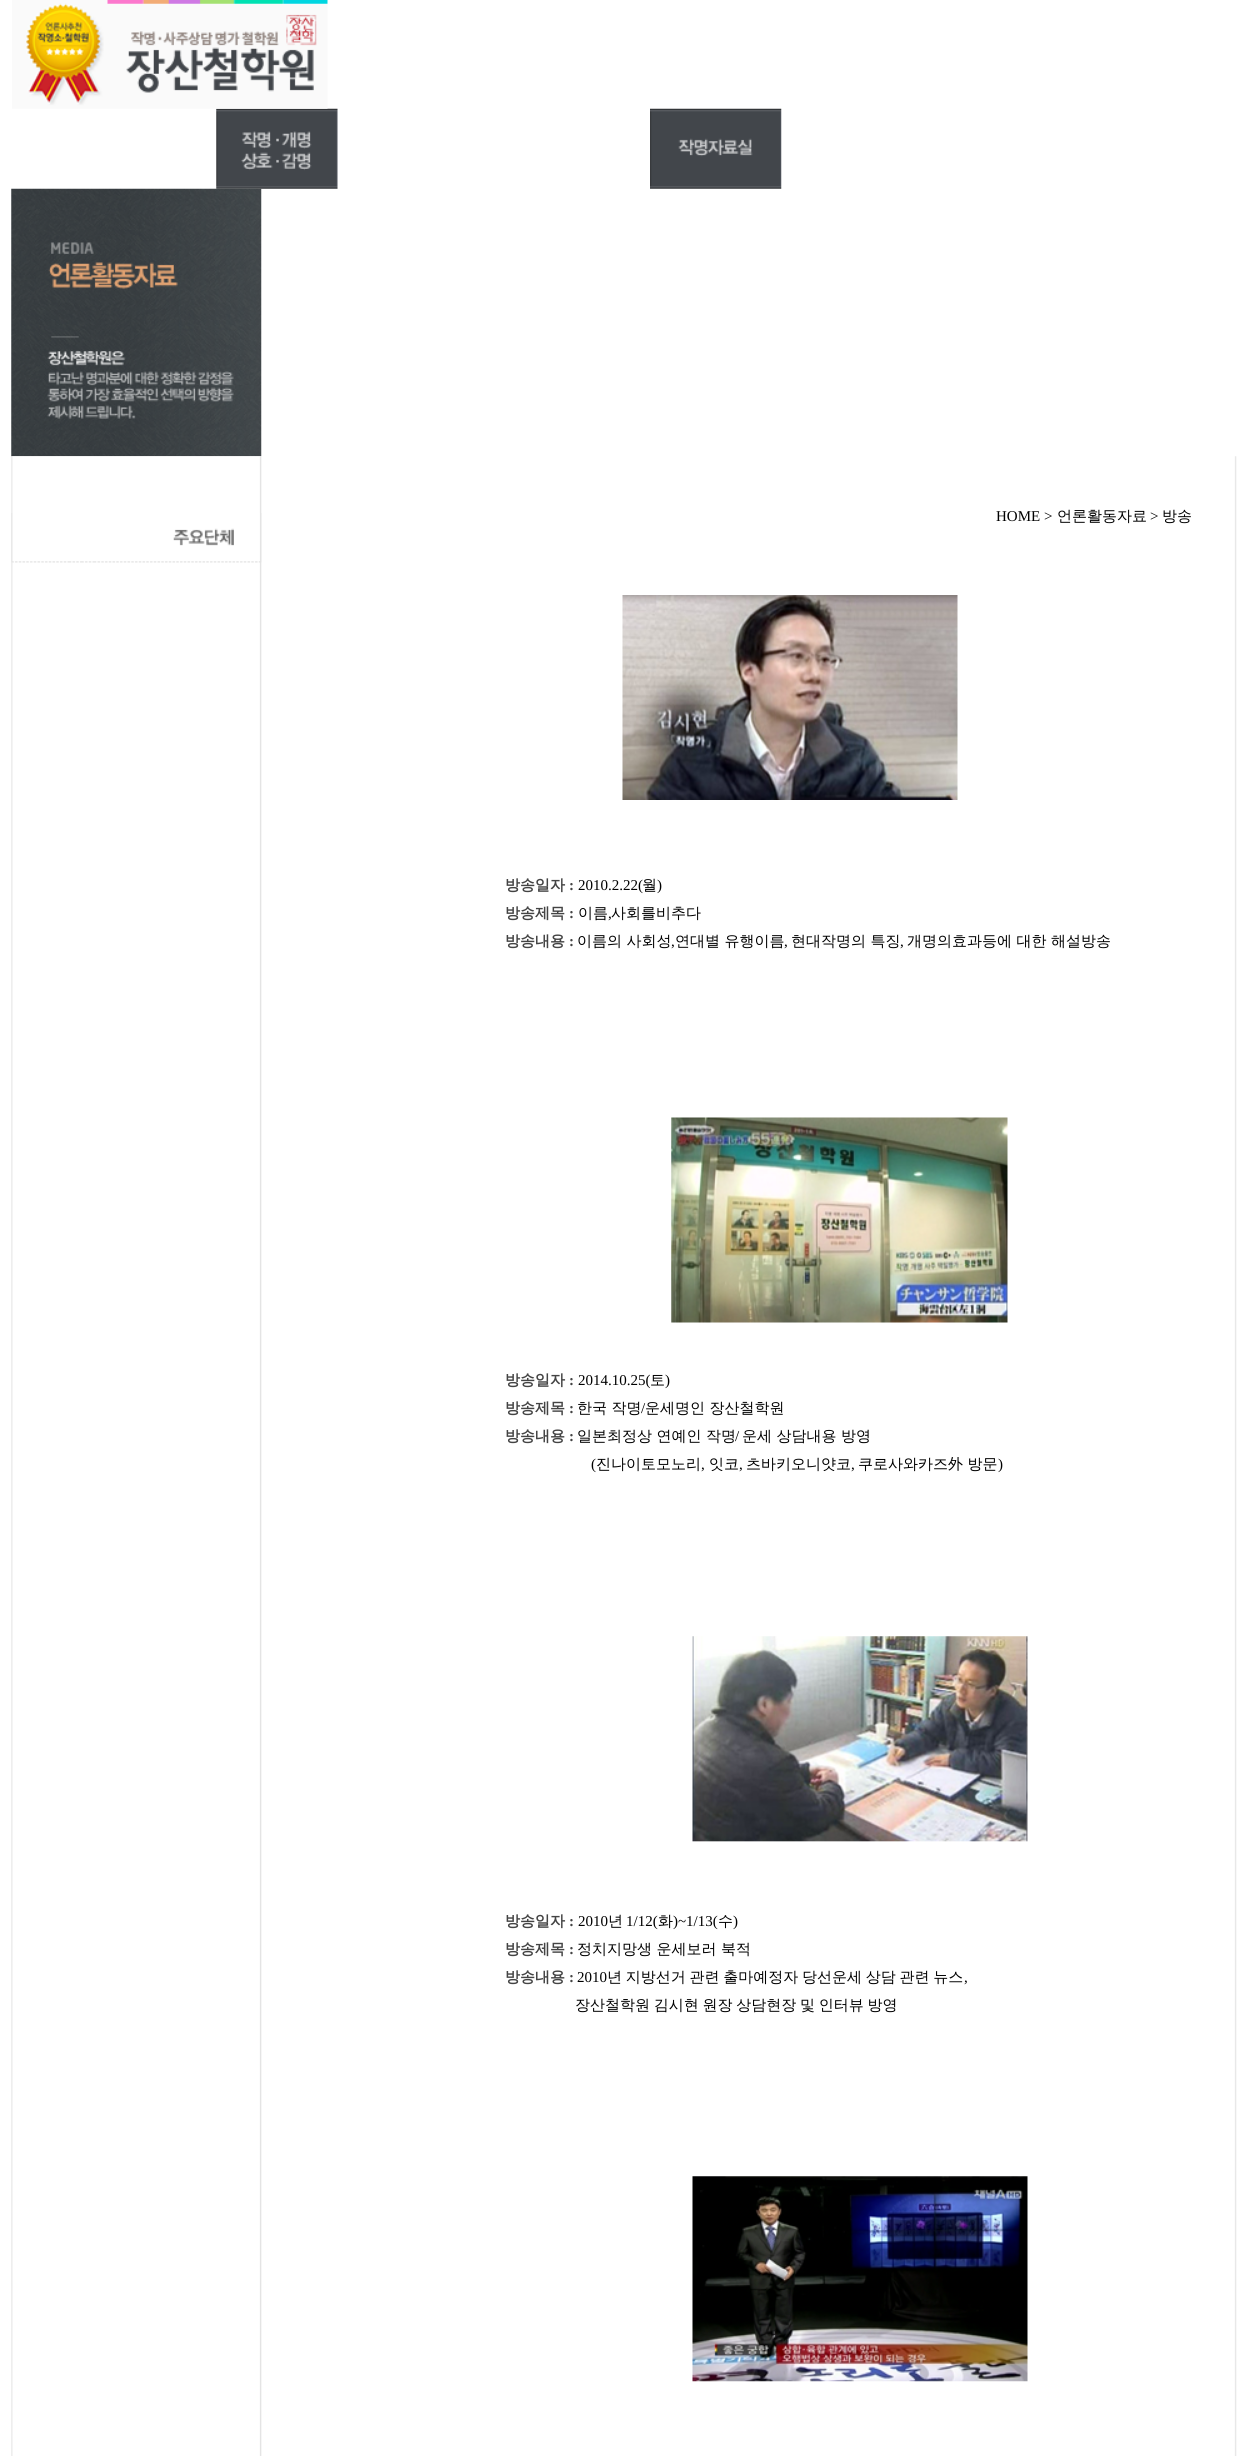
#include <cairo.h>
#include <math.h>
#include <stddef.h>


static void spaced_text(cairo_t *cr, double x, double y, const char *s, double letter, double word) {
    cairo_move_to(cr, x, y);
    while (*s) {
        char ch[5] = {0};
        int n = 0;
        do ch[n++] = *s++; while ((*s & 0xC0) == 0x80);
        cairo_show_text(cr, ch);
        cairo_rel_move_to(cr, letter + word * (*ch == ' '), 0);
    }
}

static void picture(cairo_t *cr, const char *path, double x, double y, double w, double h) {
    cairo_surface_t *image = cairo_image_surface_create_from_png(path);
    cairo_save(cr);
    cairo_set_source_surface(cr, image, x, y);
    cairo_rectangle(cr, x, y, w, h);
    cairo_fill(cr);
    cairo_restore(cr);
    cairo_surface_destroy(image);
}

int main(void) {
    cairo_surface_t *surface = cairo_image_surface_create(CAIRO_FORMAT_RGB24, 1247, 2456);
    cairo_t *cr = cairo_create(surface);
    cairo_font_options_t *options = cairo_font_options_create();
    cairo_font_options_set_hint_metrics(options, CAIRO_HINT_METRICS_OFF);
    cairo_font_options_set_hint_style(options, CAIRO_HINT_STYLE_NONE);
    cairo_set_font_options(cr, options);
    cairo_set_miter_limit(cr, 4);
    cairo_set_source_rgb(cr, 1, 1, 1);
    cairo_paint(cr);
    picture(cr, "img2.png", 216, 108, 122, 81);
    picture(cr, "img1.png", 12, 0, 316, 109);
    picture(cr, "img3.png", 650, 108, 132, 81);
    picture(cr, "img4.png", 11, 188, 251, 269);
    picture(cr, "img5.png", 11, 456, 1226, 2000);
    picture(cr, "img6.png", 11, 513, 251, 50);
    cairo_select_font_face(cr, "Liberation Serif", CAIRO_FONT_SLANT_NORMAL, CAIRO_FONT_WEIGHT_NORMAL);
    cairo_set_font_size(cr, 15);
    cairo_set_source_rgb(cr, 0, 0, 0);
    cairo_move_to(cr, 996, 521);
    cairo_show_text(cr, "HOME >");
    cairo_select_font_face(cr, "WenQuanYi Zen Hei Medium", CAIRO_FONT_SLANT_NORMAL, CAIRO_FONT_WEIGHT_NORMAL);
    cairo_move_to(cr, 1057, 521);
    cairo_show_text(cr, "언론활동자료");
    cairo_select_font_face(cr, "Liberation Serif", CAIRO_FONT_SLANT_NORMAL, CAIRO_FONT_WEIGHT_NORMAL);
    cairo_move_to(cr, 1150, 521);
    cairo_show_text(cr, ">");
    cairo_select_font_face(cr, "WenQuanYi Zen Hei Medium", CAIRO_FONT_SLANT_NORMAL, CAIRO_FONT_WEIGHT_NORMAL);
    cairo_move_to(cr, 1162, 521);
    cairo_show_text(cr, "방송");
    picture(cr, "img7.png", 622, 595, 336, 205);
    cairo_select_font_face(cr, "WenQuanYi Zen Hei", CAIRO_FONT_SLANT_NORMAL, CAIRO_FONT_WEIGHT_BOLD);
    cairo_set_source_rgb(cr, 0.267, 0.267, 0.267);
    cairo_move_to(cr, 505, 890);
    cairo_show_text(cr, "방송일자");
    cairo_select_font_face(cr, "Liberation Serif", CAIRO_FONT_SLANT_NORMAL, CAIRO_FONT_WEIGHT_BOLD);
    cairo_move_to(cr, 569, 890);
    cairo_show_text(cr, ":");
    cairo_select_font_face(cr, "Liberation Serif", CAIRO_FONT_SLANT_NORMAL, CAIRO_FONT_WEIGHT_NORMAL);
    cairo_set_source_rgb(cr, 0, 0, 0);
    cairo_move_to(cr, 578, 890);
    cairo_show_text(cr, "2010.2.22(");
    cairo_select_font_face(cr, "WenQuanYi Zen Hei Medium", CAIRO_FONT_SLANT_NORMAL, CAIRO_FONT_WEIGHT_NORMAL);
    cairo_move_to(cr, 642, 890);
    cairo_show_text(cr, "월");
    cairo_select_font_face(cr, "Liberation Serif", CAIRO_FONT_SLANT_NORMAL, CAIRO_FONT_WEIGHT_NORMAL);
    cairo_move_to(cr, 657, 890);
    cairo_show_text(cr, ")");
    cairo_select_font_face(cr, "WenQuanYi Zen Hei", CAIRO_FONT_SLANT_NORMAL, CAIRO_FONT_WEIGHT_BOLD);
    cairo_set_source_rgb(cr, 0.267, 0.267, 0.267);
    cairo_move_to(cr, 505, 918);
    cairo_show_text(cr, "방송제목");
    cairo_select_font_face(cr, "Liberation Serif", CAIRO_FONT_SLANT_NORMAL, CAIRO_FONT_WEIGHT_BOLD);
    cairo_move_to(cr, 569, 918);
    cairo_show_text(cr, ":");
    cairo_select_font_face(cr, "WenQuanYi Zen Hei Medium", CAIRO_FONT_SLANT_NORMAL, CAIRO_FONT_WEIGHT_NORMAL);
    cairo_set_source_rgb(cr, 0, 0, 0);
    cairo_move_to(cr, 578, 918);
    cairo_show_text(cr, "이름");
    cairo_select_font_face(cr, "Liberation Serif", CAIRO_FONT_SLANT_NORMAL, CAIRO_FONT_WEIGHT_NORMAL);
    cairo_move_to(cr, 608, 918);
    cairo_show_text(cr, ",");
    cairo_select_font_face(cr, "WenQuanYi Zen Hei Medium", CAIRO_FONT_SLANT_NORMAL, CAIRO_FONT_WEIGHT_NORMAL);
    cairo_move_to(cr, 611, 918);
    cairo_show_text(cr, "사회를비추다");
    cairo_select_font_face(cr, "WenQuanYi Zen Hei", CAIRO_FONT_SLANT_NORMAL, CAIRO_FONT_WEIGHT_BOLD);
    cairo_set_source_rgb(cr, 0.267, 0.267, 0.267);
    cairo_move_to(cr, 505, 946);
    cairo_show_text(cr, "방송내용");
    cairo_select_font_face(cr, "Liberation Serif", CAIRO_FONT_SLANT_NORMAL, CAIRO_FONT_WEIGHT_BOLD);
    cairo_move_to(cr, 569, 946);
    cairo_show_text(cr, ":");
    cairo_select_font_face(cr, "WenQuanYi Zen Hei Medium", CAIRO_FONT_SLANT_NORMAL, CAIRO_FONT_WEIGHT_NORMAL);
    cairo_set_source_rgb(cr, 0, 0, 0);
    cairo_move_to(cr, 577, 946);
    cairo_show_text(cr, "이름의 사회성");
    cairo_select_font_face(cr, "Liberation Serif", CAIRO_FONT_SLANT_NORMAL, CAIRO_FONT_WEIGHT_NORMAL);
    cairo_move_to(cr, 671, 946);
    cairo_show_text(cr, ",");
    cairo_select_font_face(cr, "WenQuanYi Zen Hei Medium", CAIRO_FONT_SLANT_NORMAL, CAIRO_FONT_WEIGHT_NORMAL);
    cairo_move_to(cr, 675, 946);
    cairo_show_text(cr, "연대별 유행이름");
    cairo_select_font_face(cr, "Liberation Serif", CAIRO_FONT_SLANT_NORMAL, CAIRO_FONT_WEIGHT_NORMAL);
    cairo_move_to(cr, 784, 946);
    cairo_show_text(cr, ",");
    cairo_select_font_face(cr, "WenQuanYi Zen Hei Medium", CAIRO_FONT_SLANT_NORMAL, CAIRO_FONT_WEIGHT_NORMAL);
    cairo_move_to(cr, 791, 946);
    cairo_show_text(cr, "현대작명의 특징");
    cairo_select_font_face(cr, "Liberation Serif", CAIRO_FONT_SLANT_NORMAL, CAIRO_FONT_WEIGHT_NORMAL);
    cairo_move_to(cr, 900, 946);
    cairo_show_text(cr, ",");
    cairo_select_font_face(cr, "WenQuanYi Zen Hei Medium", CAIRO_FONT_SLANT_NORMAL, CAIRO_FONT_WEIGHT_NORMAL);
    cairo_move_to(cr, 907, 946);
    cairo_show_text(cr, "개명의효과등에 대한 해설방송");
    picture(cr, "img8.png", 671, 1117, 337, 206);
    cairo_select_font_face(cr, "WenQuanYi Zen Hei", CAIRO_FONT_SLANT_NORMAL, CAIRO_FONT_WEIGHT_BOLD);
    cairo_set_source_rgb(cr, 0.267, 0.267, 0.267);
    cairo_move_to(cr, 505, 1385);
    cairo_show_text(cr, "방송일자");
    cairo_select_font_face(cr, "Liberation Serif", CAIRO_FONT_SLANT_NORMAL, CAIRO_FONT_WEIGHT_BOLD);
    cairo_move_to(cr, 569, 1385);
    cairo_show_text(cr, ":");
    cairo_select_font_face(cr, "Liberation Serif", CAIRO_FONT_SLANT_NORMAL, CAIRO_FONT_WEIGHT_NORMAL);
    cairo_set_source_rgb(cr, 0, 0, 0);
    cairo_move_to(cr, 578, 1385);
    cairo_show_text(cr, "2014.10.25(");
    cairo_select_font_face(cr, "WenQuanYi Zen Hei Medium", CAIRO_FONT_SLANT_NORMAL, CAIRO_FONT_WEIGHT_NORMAL);
    cairo_move_to(cr, 650, 1385);
    cairo_show_text(cr, "토");
    cairo_select_font_face(cr, "Liberation Serif", CAIRO_FONT_SLANT_NORMAL, CAIRO_FONT_WEIGHT_NORMAL);
    cairo_move_to(cr, 665, 1385);
    cairo_show_text(cr, ")");
    cairo_select_font_face(cr, "WenQuanYi Zen Hei", CAIRO_FONT_SLANT_NORMAL, CAIRO_FONT_WEIGHT_BOLD);
    cairo_set_source_rgb(cr, 0.267, 0.267, 0.267);
    cairo_move_to(cr, 505, 1413);
    cairo_show_text(cr, "방송제목");
    cairo_select_font_face(cr, "Liberation Serif", CAIRO_FONT_SLANT_NORMAL, CAIRO_FONT_WEIGHT_BOLD);
    cairo_move_to(cr, 569, 1413);
    cairo_show_text(cr, ":");
    cairo_select_font_face(cr, "WenQuanYi Zen Hei Medium", CAIRO_FONT_SLANT_NORMAL, CAIRO_FONT_WEIGHT_NORMAL);
    cairo_set_source_rgb(cr, 0, 0, 0);
    cairo_move_to(cr, 577, 1413);
    cairo_show_text(cr, "한국 작명");
    cairo_select_font_face(cr, "Liberation Serif", CAIRO_FONT_SLANT_NORMAL, CAIRO_FONT_WEIGHT_NORMAL);
    cairo_move_to(cr, 641, 1413);
    cairo_show_text(cr, "/");
    cairo_select_font_face(cr, "WenQuanYi Zen Hei Medium", CAIRO_FONT_SLANT_NORMAL, CAIRO_FONT_WEIGHT_NORMAL);
    cairo_move_to(cr, 645, 1413);
    cairo_show_text(cr, "운세명인 장산철학원");
    cairo_select_font_face(cr, "WenQuanYi Zen Hei", CAIRO_FONT_SLANT_NORMAL, CAIRO_FONT_WEIGHT_BOLD);
    cairo_set_source_rgb(cr, 0.267, 0.267, 0.267);
    cairo_move_to(cr, 505, 1441);
    cairo_show_text(cr, "방송내용");
    cairo_select_font_face(cr, "Liberation Serif", CAIRO_FONT_SLANT_NORMAL, CAIRO_FONT_WEIGHT_BOLD);
    cairo_move_to(cr, 569, 1441);
    cairo_show_text(cr, ":");
    cairo_select_font_face(cr, "WenQuanYi Zen Hei Medium", CAIRO_FONT_SLANT_NORMAL, CAIRO_FONT_WEIGHT_NORMAL);
    cairo_set_source_rgb(cr, 0, 0, 0);
    cairo_move_to(cr, 577, 1441);
    cairo_show_text(cr, "일본최정상 연예인 작명");
    cairo_select_font_face(cr, "Liberation Serif", CAIRO_FONT_SLANT_NORMAL, CAIRO_FONT_WEIGHT_NORMAL);
    cairo_move_to(cr, 735, 1441);
    cairo_show_text(cr, "/");
    cairo_select_font_face(cr, "WenQuanYi Zen Hei Medium", CAIRO_FONT_SLANT_NORMAL, CAIRO_FONT_WEIGHT_NORMAL);
    cairo_move_to(cr, 742, 1441);
    cairo_show_text(cr, "운세 상담내용 방영");
    cairo_select_font_face(cr, "Liberation Serif", CAIRO_FONT_SLANT_NORMAL, CAIRO_FONT_WEIGHT_NORMAL);
    cairo_move_to(cr, 591, 1469);
    cairo_show_text(cr, "(");
    cairo_select_font_face(cr, "WenQuanYi Zen Hei Medium", CAIRO_FONT_SLANT_NORMAL, CAIRO_FONT_WEIGHT_NORMAL);
    cairo_move_to(cr, 596, 1469);
    cairo_show_text(cr, "진나이토모노리");
    cairo_select_font_face(cr, "Liberation Serif", CAIRO_FONT_SLANT_NORMAL, CAIRO_FONT_WEIGHT_NORMAL);
    cairo_move_to(cr, 701, 1469);
    cairo_show_text(cr, ",");
    cairo_select_font_face(cr, "WenQuanYi Zen Hei Medium", CAIRO_FONT_SLANT_NORMAL, CAIRO_FONT_WEIGHT_NORMAL);
    cairo_move_to(cr, 709, 1469);
    cairo_show_text(cr, "잇코");
    cairo_select_font_face(cr, "Liberation Serif", CAIRO_FONT_SLANT_NORMAL, CAIRO_FONT_WEIGHT_NORMAL);
    cairo_move_to(cr, 739, 1469);
    cairo_show_text(cr, ",");
    cairo_select_font_face(cr, "WenQuanYi Zen Hei Medium", CAIRO_FONT_SLANT_NORMAL, CAIRO_FONT_WEIGHT_NORMAL);
    cairo_move_to(cr, 746, 1469);
    cairo_show_text(cr, "츠바키오니얏코");
    cairo_select_font_face(cr, "Liberation Serif", CAIRO_FONT_SLANT_NORMAL, CAIRO_FONT_WEIGHT_NORMAL);
    cairo_move_to(cr, 851, 1469);
    cairo_show_text(cr, ",");
    cairo_select_font_face(cr, "WenQuanYi Zen Hei Medium", CAIRO_FONT_SLANT_NORMAL, CAIRO_FONT_WEIGHT_NORMAL);
    cairo_move_to(cr, 858, 1469);
    cairo_show_text(cr, "쿠로사와카즈外 방문");
    cairo_select_font_face(cr, "Liberation Serif", CAIRO_FONT_SLANT_NORMAL, CAIRO_FONT_WEIGHT_NORMAL);
    cairo_move_to(cr, 998, 1469);
    cairo_show_text(cr, ")");
    picture(cr, "img9.png", 692, 1636, 336, 206);
    cairo_select_font_face(cr, "WenQuanYi Zen Hei", CAIRO_FONT_SLANT_NORMAL, CAIRO_FONT_WEIGHT_BOLD);
    cairo_set_source_rgb(cr, 0.267, 0.267, 0.267);
    cairo_move_to(cr, 505, 1926);
    cairo_show_text(cr, "방송일자");
    cairo_select_font_face(cr, "Liberation Serif", CAIRO_FONT_SLANT_NORMAL, CAIRO_FONT_WEIGHT_BOLD);
    cairo_move_to(cr, 569, 1926);
    cairo_show_text(cr, ":");
    cairo_select_font_face(cr, "Liberation Serif", CAIRO_FONT_SLANT_NORMAL, CAIRO_FONT_WEIGHT_NORMAL);
    cairo_set_source_rgb(cr, 0, 0, 0);
    cairo_move_to(cr, 578, 1926);
    cairo_show_text(cr, "2010");
    cairo_select_font_face(cr, "WenQuanYi Zen Hei Medium", CAIRO_FONT_SLANT_NORMAL, CAIRO_FONT_WEIGHT_NORMAL);
    cairo_move_to(cr, 608, 1926);
    cairo_show_text(cr, "년");
    cairo_select_font_face(cr, "Liberation Serif", CAIRO_FONT_SLANT_NORMAL, CAIRO_FONT_WEIGHT_NORMAL);
    cairo_move_to(cr, 626, 1926);
    cairo_show_text(cr, "1/12(");
    cairo_select_font_face(cr, "WenQuanYi Zen Hei Medium", CAIRO_FONT_SLANT_NORMAL, CAIRO_FONT_WEIGHT_NORMAL);
    cairo_move_to(cr, 658, 1926);
    cairo_show_text(cr, "화");
    cairo_select_font_face(cr, "Liberation Serif", CAIRO_FONT_SLANT_NORMAL, CAIRO_FONT_WEIGHT_NORMAL);
    cairo_move_to(cr, 673, 1926);
    cairo_show_text(cr, ")~1/13(");
    cairo_select_font_face(cr, "WenQuanYi Zen Hei Medium", CAIRO_FONT_SLANT_NORMAL, CAIRO_FONT_WEIGHT_NORMAL);
    cairo_move_to(cr, 718, 1926);
    cairo_show_text(cr, "수");
    cairo_select_font_face(cr, "Liberation Serif", CAIRO_FONT_SLANT_NORMAL, CAIRO_FONT_WEIGHT_NORMAL);
    cairo_move_to(cr, 733, 1926);
    cairo_show_text(cr, ")");
    cairo_select_font_face(cr, "WenQuanYi Zen Hei", CAIRO_FONT_SLANT_NORMAL, CAIRO_FONT_WEIGHT_BOLD);
    cairo_set_source_rgb(cr, 0.267, 0.267, 0.267);
    cairo_move_to(cr, 505, 1954);
    cairo_show_text(cr, "방송제목");
    cairo_select_font_face(cr, "Liberation Serif", CAIRO_FONT_SLANT_NORMAL, CAIRO_FONT_WEIGHT_BOLD);
    cairo_move_to(cr, 569, 1954);
    cairo_show_text(cr, ":");
    cairo_select_font_face(cr, "WenQuanYi Zen Hei Medium", CAIRO_FONT_SLANT_NORMAL, CAIRO_FONT_WEIGHT_NORMAL);
    cairo_set_source_rgb(cr, 0, 0, 0);
    cairo_move_to(cr, 577, 1954);
    cairo_show_text(cr, "정치지망생 운세보러 북적");
    cairo_select_font_face(cr, "WenQuanYi Zen Hei", CAIRO_FONT_SLANT_NORMAL, CAIRO_FONT_WEIGHT_BOLD);
    cairo_set_source_rgb(cr, 0.267, 0.267, 0.267);
    cairo_move_to(cr, 505, 1982);
    cairo_show_text(cr, "방송내용");
    cairo_select_font_face(cr, "Liberation Serif", CAIRO_FONT_SLANT_NORMAL, CAIRO_FONT_WEIGHT_BOLD);
    cairo_move_to(cr, 569, 1982);
    cairo_show_text(cr, ":");
    cairo_select_font_face(cr, "Liberation Serif", CAIRO_FONT_SLANT_NORMAL, CAIRO_FONT_WEIGHT_NORMAL);
    cairo_set_source_rgb(cr, 0, 0, 0);
    cairo_move_to(cr, 577, 1982);
    cairo_show_text(cr, "2010");
    cairo_select_font_face(cr, "WenQuanYi Zen Hei Medium", CAIRO_FONT_SLANT_NORMAL, CAIRO_FONT_WEIGHT_NORMAL);
    spaced_text(cr, 607, 1982, "년 지방선거 관련 출마예정자 당선운세 상담 관련 뉴스", 0, -0.75);
    cairo_select_font_face(cr, "Liberation Serif", CAIRO_FONT_SLANT_NORMAL, CAIRO_FONT_WEIGHT_NORMAL);
    cairo_move_to(cr, 964, 1982);
    cairo_show_text(cr, ",");
    cairo_select_font_face(cr, "WenQuanYi Zen Hei Medium", CAIRO_FONT_SLANT_NORMAL, CAIRO_FONT_WEIGHT_NORMAL);
    spaced_text(cr, 575, 2010, "장산철학원 김시현 원장 상담현장 및 인터뷰 방영", 0, -0.75);
    picture(cr, "img10.png", 692, 2176, 336, 206);
    cairo_surface_write_to_png(surface, "page.png");
    cairo_font_options_destroy(options);
    cairo_destroy(cr);
    cairo_surface_destroy(surface);
    return 0;
}
